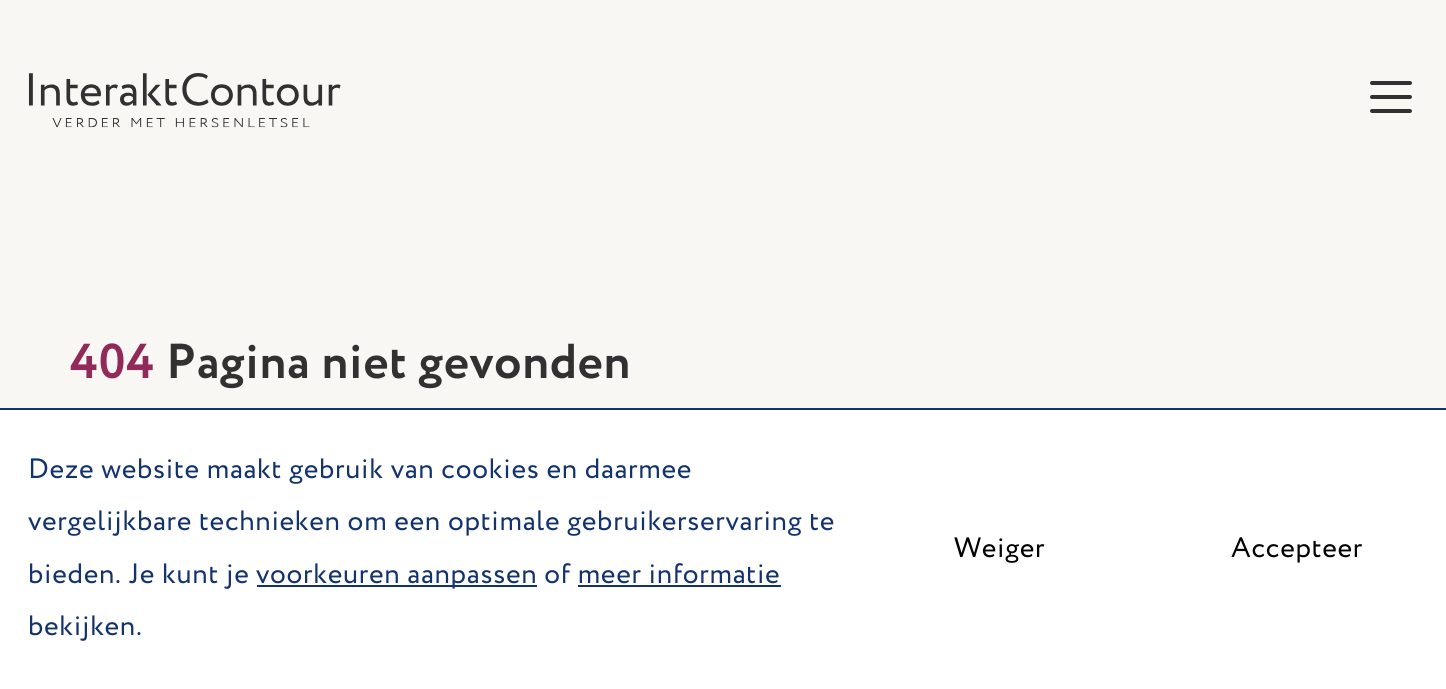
#include <cairo.h>
#include <math.h>
#include <stddef.h>


static void spaced_text(cairo_t *cr, double x, double y, const char *s, double letter, double word) {
    cairo_move_to(cr, x, y);
    while (*s) {
        char ch[5] = {0};
        int n = 0;
        do ch[n++] = *s++; while ((*s & 0xC0) == 0x80);
        cairo_show_text(cr, ch);
        cairo_rel_move_to(cr, letter + word * (*ch == ' '), 0);
    }
}

static void round_rect(cairo_t *cr, double x, double y, double w, double h, double r) {
    cairo_new_sub_path(cr);
    cairo_arc(cr, x + w - r, y + h - r, r, 0, M_PI / 2);
    cairo_arc(cr, x + r, y + h - r, r, M_PI / 2, M_PI);
    cairo_arc(cr, x + r, y + r, r, M_PI, 1.5 * M_PI);
    cairo_arc(cr, x + w - r, y + r, r, 1.5 * M_PI, 2 * M_PI);
    cairo_close_path(cr);
}

static void picture(cairo_t *cr, const char *path, double x, double y, double w, double h) {
    cairo_surface_t *image = cairo_image_surface_create_from_png(path);
    cairo_save(cr);
    cairo_set_source_surface(cr, image, x, y);
    cairo_rectangle(cr, x, y, w, h);
    cairo_fill(cr);
    cairo_restore(cr);
    cairo_surface_destroy(image);
}

int main(void) {
    cairo_surface_t *surface = cairo_image_surface_create(CAIRO_FORMAT_RGB24, 1446, 689);
    cairo_t *cr = cairo_create(surface);
    cairo_font_options_t *options = cairo_font_options_create();
    cairo_font_options_set_hint_metrics(options, CAIRO_HINT_METRICS_OFF);
    cairo_font_options_set_hint_style(options, CAIRO_HINT_STYLE_NONE);
    cairo_set_font_options(cr, options);
    cairo_set_miter_limit(cr, 4);
    cairo_set_source_rgb(cr, 0.973, 0.965, 0.953);
    cairo_paint(cr);
    picture(cr, "img1.png", 28, 73, 313, 55);
    cairo_set_source_rgb(cr, 0.192, 0.192, 0.192);
    round_rect(cr, 1370, 81, 42, 4, 2);
    cairo_fill(cr);
    round_rect(cr, 1370, 95, 42, 4, 2);
    cairo_fill(cr);
    round_rect(cr, 1370, 109, 42, 4, 2);
    cairo_fill(cr);
    cairo_select_font_face(cr, "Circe", CAIRO_FONT_SLANT_NORMAL, CAIRO_FONT_WEIGHT_BOLD);
    cairo_set_font_size(cr, 49);
    cairo_set_source_rgb(cr, 0.569, 0.165, 0.357);
    spaced_text(cr, 70, 378, "404", 0.7, 0);
    cairo_set_source_rgb(cr, 0.192, 0.192, 0.192);
    spaced_text(cr, 166, 378, "Pagina niet gevonden", 0.7, 0);
    cairo_set_source_rgb(cr, 1, 1, 1);
    cairo_rectangle(cr, 0, 410, 1446, 279);
    cairo_fill(cr);
    cairo_set_source_rgb(cr, 0.075, 0.2, 0.427);
    cairo_rectangle(cr, 0, 408, 1446, 2);
    cairo_fill(cr);
    cairo_select_font_face(cr, "Circe", CAIRO_FONT_SLANT_NORMAL, CAIRO_FONT_WEIGHT_NORMAL);
    cairo_set_font_size(cr, 28);
    spaced_text(cr, 28, 478, "Deze website maakt gebruik van cookies en daarmee", 0.7, 0);
    spaced_text(cr, 28, 530, "vergelijkbare technieken om een optimale gebruikerservaring te", 0.7, 0);
    spaced_text(cr, 28, 583, "bieden. Je kunt je", 0.7, 0);
    cairo_rectangle(cr, 257, 585, 280, 2);
    cairo_fill(cr);
    spaced_text(cr, 256, 583, "voorkeuren aanpassen of meer informatie", 0.7, 0);
    cairo_rectangle(cr, 578, 585, 203, 2);
    cairo_fill(cr);
    spaced_text(cr, 28, 635, "bekijken.", 0.7, 0);
    cairo_set_source_rgb(cr, 0, 0, 0);
    spaced_text(cr, 954, 557, "Weiger", 0.7, 0);
    spaced_text(cr, 1231, 557, "Accepteer", 0.7, 0);
    cairo_surface_write_to_png(surface, "page.png");
    cairo_font_options_destroy(options);
    cairo_destroy(cr);
    cairo_surface_destroy(surface);
    return 0;
}
